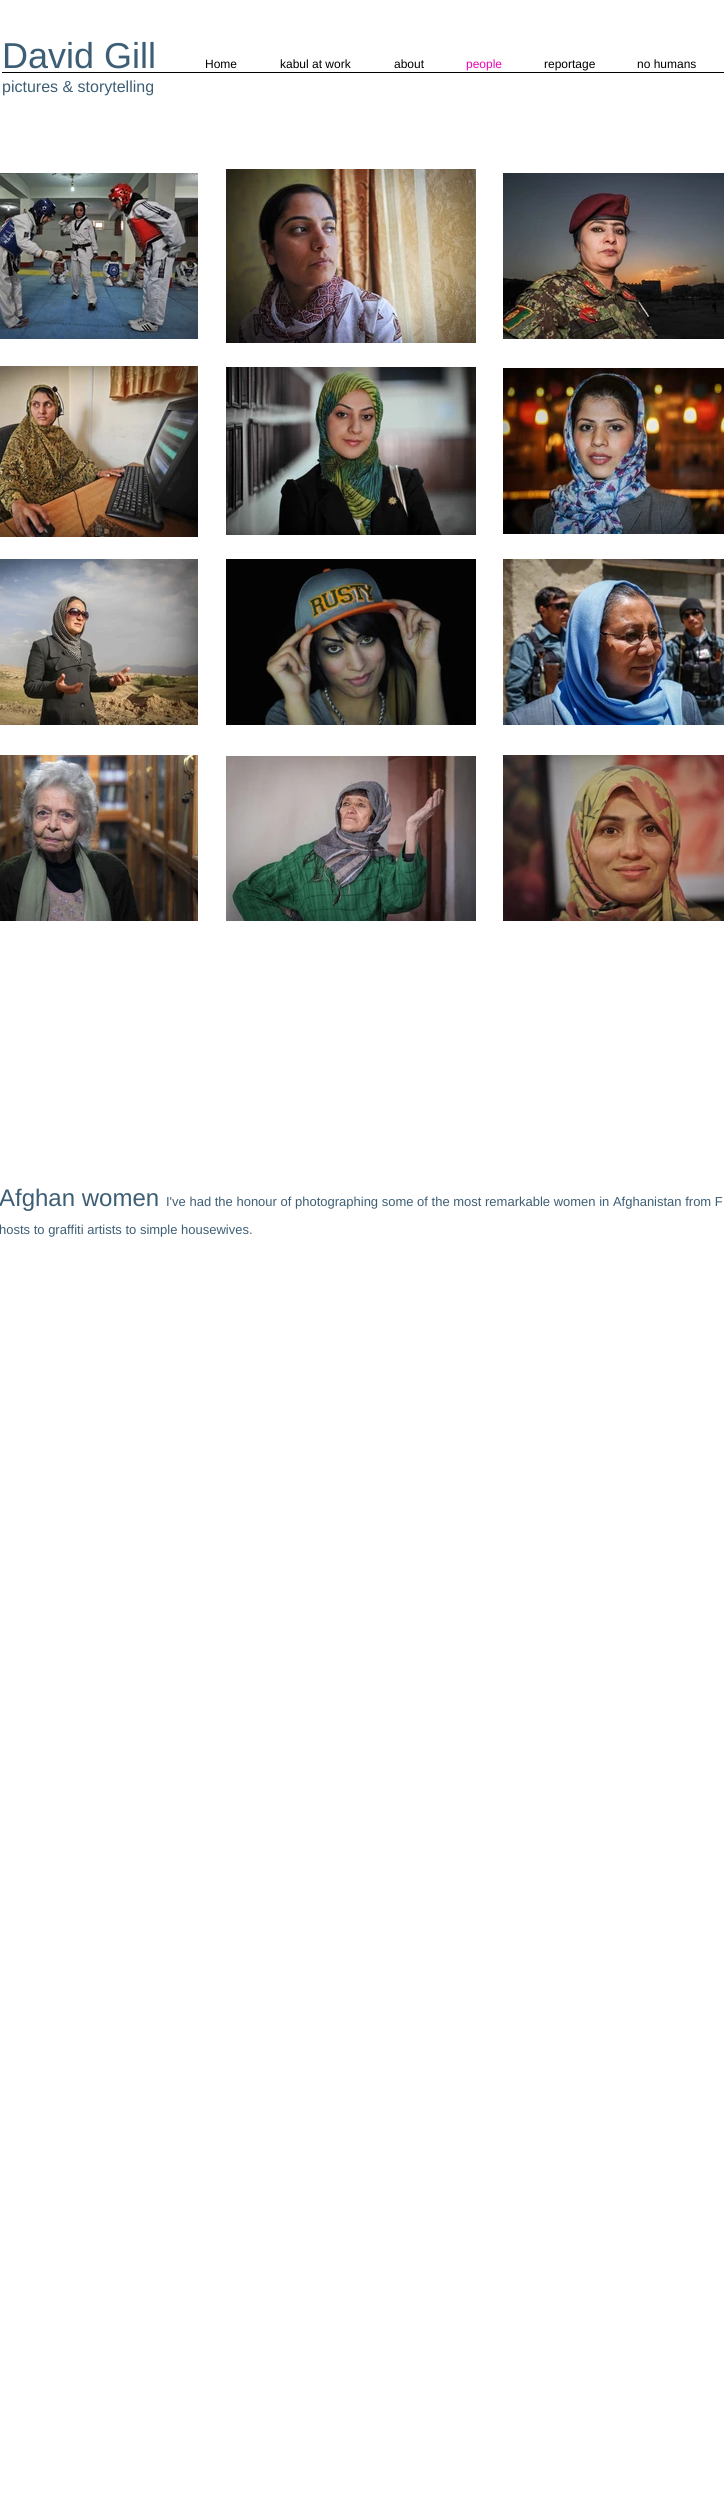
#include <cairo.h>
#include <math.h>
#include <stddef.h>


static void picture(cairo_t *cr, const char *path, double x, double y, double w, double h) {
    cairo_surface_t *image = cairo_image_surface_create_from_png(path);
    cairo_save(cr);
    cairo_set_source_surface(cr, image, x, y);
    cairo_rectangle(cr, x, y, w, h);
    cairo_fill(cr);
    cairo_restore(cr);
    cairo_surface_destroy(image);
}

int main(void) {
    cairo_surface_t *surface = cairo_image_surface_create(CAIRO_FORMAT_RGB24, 724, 2517);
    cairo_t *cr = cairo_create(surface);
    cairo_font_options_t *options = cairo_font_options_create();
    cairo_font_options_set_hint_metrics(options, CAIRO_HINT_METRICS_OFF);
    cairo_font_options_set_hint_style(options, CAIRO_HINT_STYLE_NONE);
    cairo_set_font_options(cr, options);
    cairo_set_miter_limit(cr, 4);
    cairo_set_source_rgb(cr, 1, 1, 1);
    cairo_paint(cr);
    cairo_select_font_face(cr, "Liberation Sans", CAIRO_FONT_SLANT_NORMAL, CAIRO_FONT_WEIGHT_NORMAL);
    cairo_set_font_size(cr, 36);
    cairo_set_source_rgb(cr, 0.239, 0.369, 0.459);
    cairo_move_to(cr, 2, 68);
    cairo_show_text(cr, "David Gill");
    cairo_set_font_size(cr, 16);
    cairo_move_to(cr, 2, 92);
    cairo_show_text(cr, "pictures & storytelling");
    cairo_set_font_size(cr, 12);
    cairo_set_source_rgb(cr, 0, 0, 0);
    cairo_move_to(cr, 205, 68);
    cairo_show_text(cr, "Home");
    cairo_move_to(cr, 280, 68);
    cairo_show_text(cr, "kabul at work");
    cairo_move_to(cr, 394, 68);
    cairo_show_text(cr, "about");
    cairo_set_source_rgb(cr, 0.918, 0.016, 0.722);
    cairo_move_to(cr, 466, 68);
    cairo_show_text(cr, "people");
    cairo_set_source_rgb(cr, 0, 0, 0);
    cairo_move_to(cr, 544, 68);
    cairo_show_text(cr, "reportage");
    cairo_move_to(cr, 637, 68);
    cairo_show_text(cr, "no humans");
    cairo_rectangle(cr, 2, 72, 722, 1);
    cairo_fill(cr);
    picture(cr, "img1.png", 0, 173, 198, 166);
    picture(cr, "img2.png", 226, 169, 250, 174);
    picture(cr, "img3.png", 503, 173, 221, 166);
    picture(cr, "img4.png", 0, 366, 198, 171);
    picture(cr, "img5.png", 226, 367, 250, 168);
    picture(cr, "img6.png", 503, 368, 221, 166);
    picture(cr, "img7.png", 0, 559, 198, 166);
    picture(cr, "img8.png", 226, 559, 250, 166);
    picture(cr, "img9.png", 503, 559, 221, 166);
    picture(cr, "img10.png", 0, 755, 198, 166);
    picture(cr, "img11.png", 226, 756, 250, 165);
    picture(cr, "img12.png", 503, 755, 221, 166);
    cairo_set_font_size(cr, 24);
    cairo_set_source_rgb(cr, 0.239, 0.369, 0.459);
    cairo_move_to(cr, -1, 1206);
    cairo_show_text(cr, "Afghan women");
    cairo_set_font_size(cr, 13);
    cairo_move_to(cr, 166, 1206);
    cairo_show_text(cr, "I've had the honour of photographing some of the most remarkable women in Afghanistan from F");
    cairo_move_to(cr, -1, 1234);
    cairo_show_text(cr, "hosts to graffiti artists to simple housewives.");
    cairo_surface_write_to_png(surface, "page.png");
    cairo_font_options_destroy(options);
    cairo_destroy(cr);
    cairo_surface_destroy(surface);
    return 0;
}
